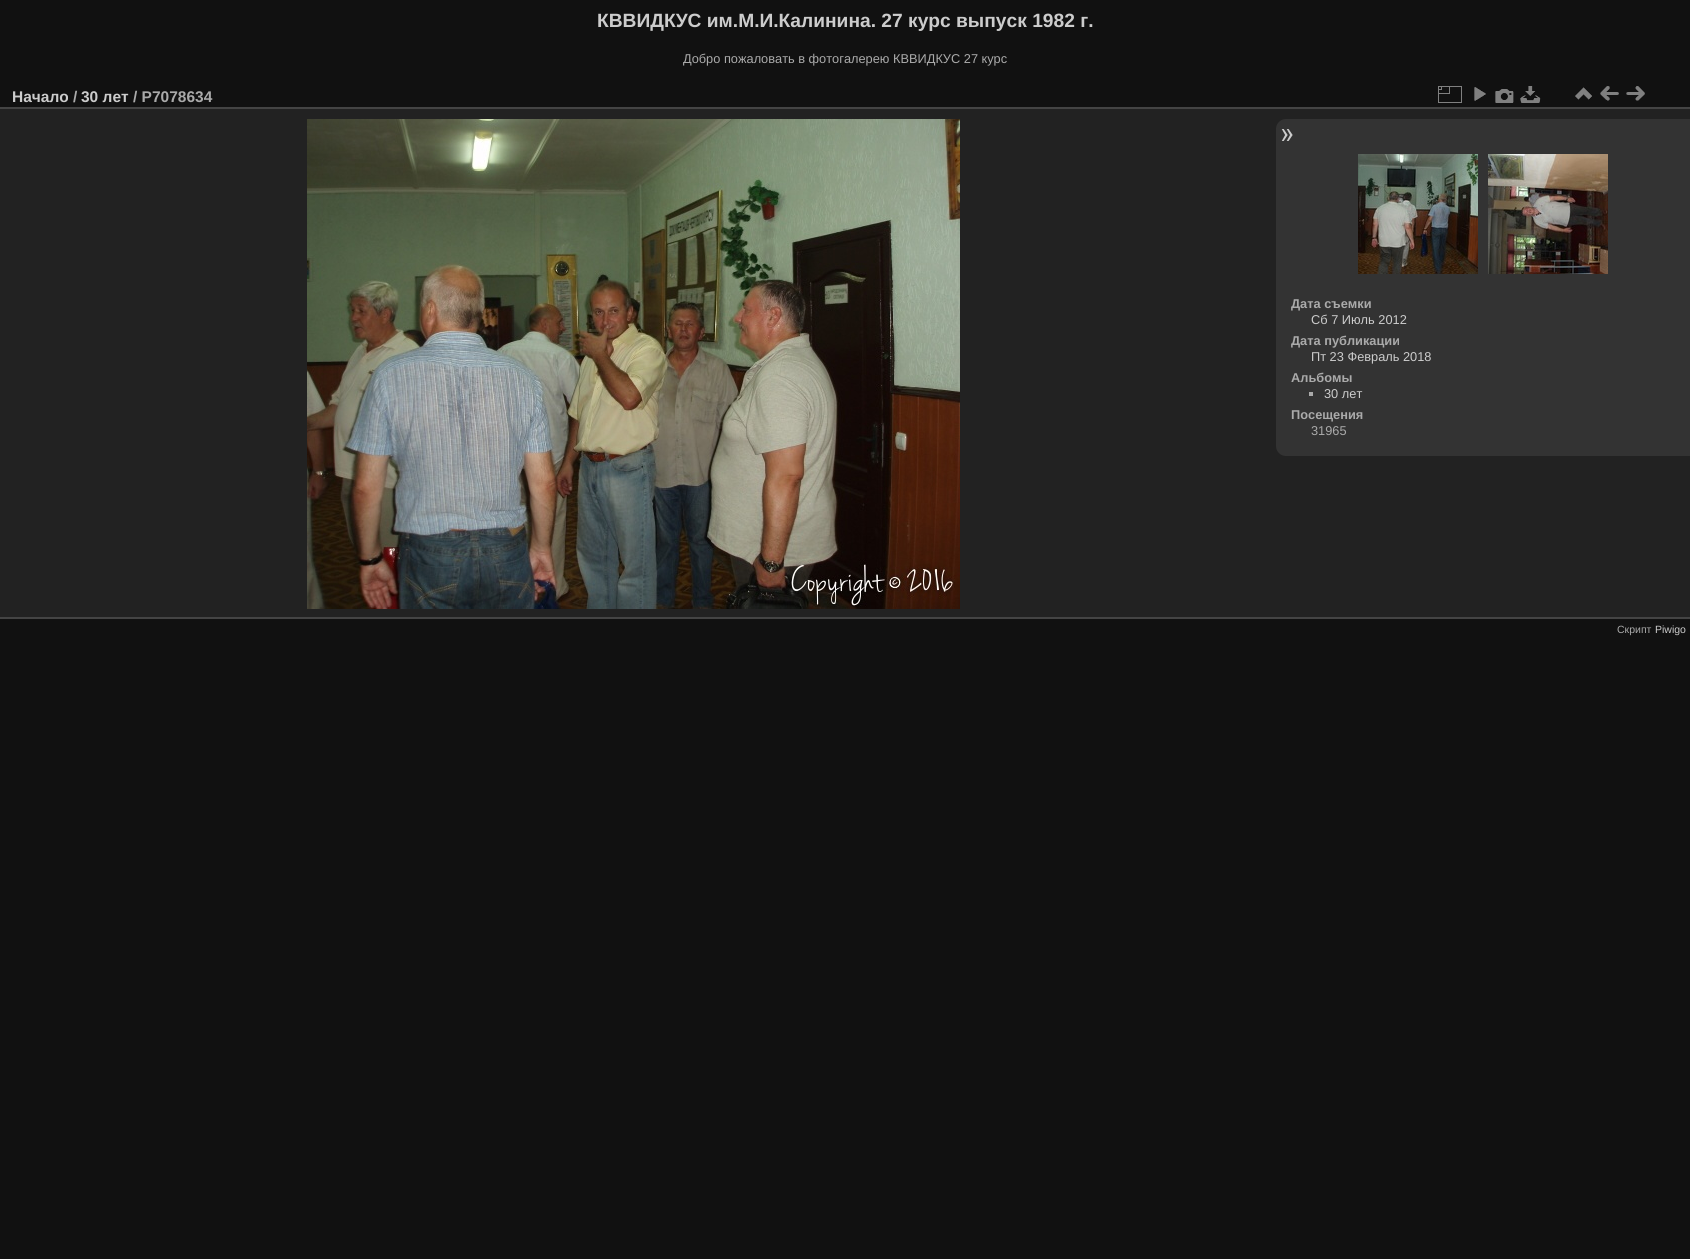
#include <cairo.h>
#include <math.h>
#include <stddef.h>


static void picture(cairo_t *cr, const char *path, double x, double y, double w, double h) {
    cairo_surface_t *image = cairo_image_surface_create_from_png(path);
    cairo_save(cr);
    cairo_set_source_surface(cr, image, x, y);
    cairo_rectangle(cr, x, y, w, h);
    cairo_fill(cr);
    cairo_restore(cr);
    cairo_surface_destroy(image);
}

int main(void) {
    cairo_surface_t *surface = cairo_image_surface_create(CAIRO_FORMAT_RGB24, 1690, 1259);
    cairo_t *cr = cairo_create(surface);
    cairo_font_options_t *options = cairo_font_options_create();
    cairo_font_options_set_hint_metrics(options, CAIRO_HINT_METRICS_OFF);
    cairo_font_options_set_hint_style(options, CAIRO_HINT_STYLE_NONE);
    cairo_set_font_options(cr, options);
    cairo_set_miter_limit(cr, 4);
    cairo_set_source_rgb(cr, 0.067, 0.067, 0.067);
    cairo_paint(cr);
    cairo_select_font_face(cr, "Liberation Sans", CAIRO_FONT_SLANT_NORMAL, CAIRO_FONT_WEIGHT_BOLD);
    cairo_set_font_size(cr, 19.2);
    cairo_set_source_rgb(cr, 0.8, 0.8, 0.8);
    cairo_move_to(cr, 597, 27);
    cairo_show_text(cr, "КВВИДКУС им.М.И.Калинина. 27 курс выпуск 1982 г.");
    cairo_select_font_face(cr, "Liberation Sans", CAIRO_FONT_SLANT_NORMAL, CAIRO_FONT_WEIGHT_NORMAL);
    cairo_set_font_size(cr, 12.8);
    cairo_set_source_rgb(cr, 0.667, 0.667, 0.667);
    cairo_move_to(cr, 683, 63);
    cairo_show_text(cr, "Добро пожаловать в фотогалерею КВВИДКУС 27 курс");
    cairo_set_source_rgb(cr, 0.133, 0.133, 0.133);
    cairo_rectangle(cr, 0, 109, 1690, 508);
    cairo_fill(cr);
    cairo_set_source_rgb(cr, 0.267, 0.267, 0.267);
    cairo_rectangle(cr, 0, 617, 1690, 2);
    cairo_fill(cr);
    cairo_rectangle(cr, 0, 107, 1690, 2);
    cairo_fill(cr);
    cairo_select_font_face(cr, "Liberation Sans", CAIRO_FONT_SLANT_NORMAL, CAIRO_FONT_WEIGHT_BOLD);
    cairo_set_font_size(cr, 15.5);
    cairo_set_source_rgb(cr, 0.8, 0.8, 0.8);
    cairo_move_to(cr, 12, 102);
    cairo_show_text(cr, "Начало");
    cairo_set_source_rgb(cr, 0.667, 0.667, 0.667);
    cairo_move_to(cr, 73, 102);
    cairo_show_text(cr, "/");
    cairo_set_source_rgb(cr, 0.8, 0.8, 0.8);
    cairo_move_to(cr, 81, 102);
    cairo_show_text(cr, "30 лет");
    cairo_set_source_rgb(cr, 0.667, 0.667, 0.667);
    cairo_move_to(cr, 133, 102);
    cairo_show_text(cr, "/ P7078634");
    picture(cr, "img1.png", 1438, 86, 24, 17);
    picture(cr, "img2.png", 1474, 87, 12, 14);
    picture(cr, "img3.png", 1495, 89, 19, 14);
    picture(cr, "img4.png", 1520, 86, 21, 17);
    picture(cr, "img5.png", 1575, 87, 17, 13);
    picture(cr, "img6.png", 1600, 86, 19, 15);
    picture(cr, "img7.png", 1626, 86, 19, 15);
    picture(cr, "img8.png", 307, 119, 653, 490);
    cairo_set_source_rgb(cr, 0.2, 0.2, 0.2);
    cairo_new_path(cr);
    cairo_move_to(cr, 1286, 119);
    cairo_line_to(cr, 1690, 119);
    cairo_line_to(cr, 1690, 456);
    cairo_line_to(cr, 1286, 456);
    cairo_curve_to(cr, 1280.5, 456, 1276, 451.5, 1276, 446);
    cairo_line_to(cr, 1276, 129);
    cairo_curve_to(cr, 1276, 123.5, 1280.5, 119, 1286, 119);
    cairo_close_path(cr);
    cairo_fill(cr);
    picture(cr, "img9.png", 1281, 129, 12, 12);
    picture(cr, "img10.png", 1358, 154, 120, 120);
    picture(cr, "img11.png", 1488, 154, 120, 120);
    cairo_set_font_size(cr, 12.8);
    cairo_set_source_rgb(cr, 0.667, 0.667, 0.667);
    cairo_move_to(cr, 1291, 308);
    cairo_show_text(cr, "Дата съемки");
    cairo_select_font_face(cr, "Liberation Sans", CAIRO_FONT_SLANT_NORMAL, CAIRO_FONT_WEIGHT_NORMAL);
    cairo_set_source_rgb(cr, 0.8, 0.8, 0.8);
    cairo_move_to(cr, 1311, 324);
    cairo_show_text(cr, "Сб 7 Июль 2012");
    cairo_select_font_face(cr, "Liberation Sans", CAIRO_FONT_SLANT_NORMAL, CAIRO_FONT_WEIGHT_BOLD);
    cairo_set_source_rgb(cr, 0.667, 0.667, 0.667);
    cairo_move_to(cr, 1291, 345);
    cairo_show_text(cr, "Дата публикации");
    cairo_select_font_face(cr, "Liberation Sans", CAIRO_FONT_SLANT_NORMAL, CAIRO_FONT_WEIGHT_NORMAL);
    cairo_set_source_rgb(cr, 0.8, 0.8, 0.8);
    cairo_move_to(cr, 1311, 361);
    cairo_show_text(cr, "Пт 23 Февраль 2018");
    cairo_select_font_face(cr, "Liberation Sans", CAIRO_FONT_SLANT_NORMAL, CAIRO_FONT_WEIGHT_BOLD);
    cairo_set_source_rgb(cr, 0.667, 0.667, 0.667);
    cairo_move_to(cr, 1291, 382);
    cairo_show_text(cr, "Альбомы");
    cairo_rectangle(cr, 1309, 392, 4, 4);
    cairo_fill(cr);
    cairo_select_font_face(cr, "Liberation Sans", CAIRO_FONT_SLANT_NORMAL, CAIRO_FONT_WEIGHT_NORMAL);
    cairo_set_source_rgb(cr, 0.8, 0.8, 0.8);
    cairo_move_to(cr, 1324, 398);
    cairo_show_text(cr, "30 лет");
    cairo_select_font_face(cr, "Liberation Sans", CAIRO_FONT_SLANT_NORMAL, CAIRO_FONT_WEIGHT_BOLD);
    cairo_set_source_rgb(cr, 0.667, 0.667, 0.667);
    cairo_move_to(cr, 1291, 419);
    cairo_show_text(cr, "Посещения");
    cairo_select_font_face(cr, "Liberation Sans", CAIRO_FONT_SLANT_NORMAL, CAIRO_FONT_WEIGHT_NORMAL);
    cairo_move_to(cr, 1311, 435);
    cairo_show_text(cr, "31965");
    cairo_set_font_size(cr, 10.5);
    cairo_move_to(cr, 1617, 633);
    cairo_show_text(cr, "Скрипт");
    cairo_set_source_rgb(cr, 0.8, 0.8, 0.8);
    cairo_move_to(cr, 1655, 633);
    cairo_show_text(cr, "Piwigo");
    cairo_surface_write_to_png(surface, "page.png");
    cairo_font_options_destroy(options);
    cairo_destroy(cr);
    cairo_surface_destroy(surface);
    return 0;
}
